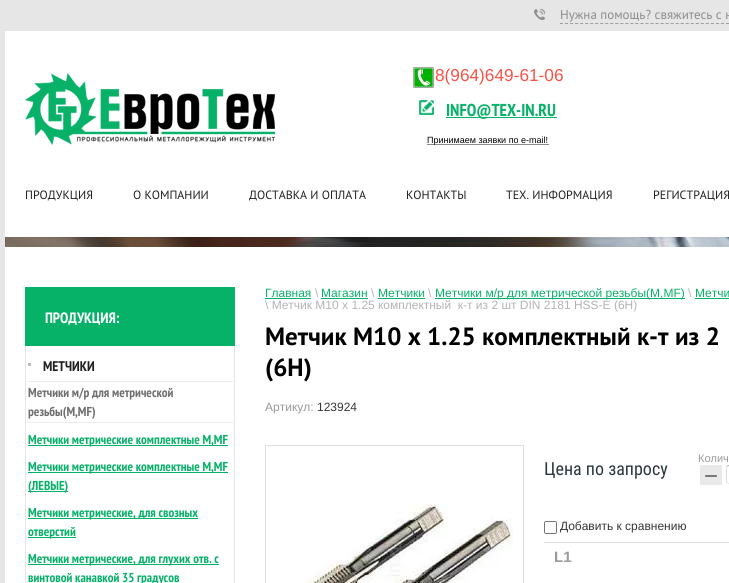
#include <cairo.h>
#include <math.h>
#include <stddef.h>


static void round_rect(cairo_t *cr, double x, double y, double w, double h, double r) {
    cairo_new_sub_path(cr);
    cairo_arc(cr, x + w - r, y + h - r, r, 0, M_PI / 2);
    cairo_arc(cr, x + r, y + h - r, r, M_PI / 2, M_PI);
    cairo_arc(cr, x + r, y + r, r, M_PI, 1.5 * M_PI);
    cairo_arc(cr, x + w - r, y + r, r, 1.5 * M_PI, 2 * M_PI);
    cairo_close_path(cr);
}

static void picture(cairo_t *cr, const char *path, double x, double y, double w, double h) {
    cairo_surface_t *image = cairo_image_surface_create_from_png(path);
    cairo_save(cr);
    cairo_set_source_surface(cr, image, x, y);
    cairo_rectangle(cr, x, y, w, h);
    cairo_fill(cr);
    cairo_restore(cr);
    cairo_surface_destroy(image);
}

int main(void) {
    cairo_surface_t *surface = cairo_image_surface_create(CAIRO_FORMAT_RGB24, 729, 583);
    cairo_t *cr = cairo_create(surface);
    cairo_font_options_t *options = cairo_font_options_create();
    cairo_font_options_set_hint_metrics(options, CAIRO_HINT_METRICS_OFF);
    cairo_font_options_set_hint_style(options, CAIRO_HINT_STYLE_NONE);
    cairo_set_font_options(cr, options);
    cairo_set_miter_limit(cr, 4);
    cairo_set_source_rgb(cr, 0.902, 0.902, 0.902);
    cairo_paint(cr);
    cairo_set_source_rgb(cr, 1, 1, 1);
    cairo_rectangle(cr, 5, 31, 724, 552);
    cairo_fill(cr);
    picture(cr, "img1.png", 534, 9, 11, 11);
    cairo_select_font_face(cr, "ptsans", CAIRO_FONT_SLANT_NORMAL, CAIRO_FONT_WEIGHT_NORMAL);
    cairo_set_font_size(cr, 13);
    cairo_set_source_rgb(cr, 0.549, 0.549, 0.549);
    cairo_move_to(cr, 560, 19);
    cairo_show_text(cr, "Нужна помощь? свяжитесь с н");
    cairo_new_path(cr);
    cairo_move_to(cr, 560, 23.5);
    cairo_line_to(cr, 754, 23.5);
    cairo_set_source_rgb(cr, 0.62, 0.62, 0.62);
    cairo_set_line_width(cr, 1);
    cairo_set_dash(cr, (double[]){3, 2.03}, 2, 0);
    cairo_stroke(cr);
    picture(cr, "img2.png", 25, 73, 250, 72);
    picture(cr, "img3.png", 412, 66, 23, 23);
    cairo_select_font_face(cr, "Liberation Sans", CAIRO_FONT_SLANT_NORMAL, CAIRO_FONT_WEIGHT_NORMAL);
    cairo_set_font_size(cr, 17.25);
    cairo_set_source_rgb(cr, 0.969, 0.322, 0.267);
    cairo_move_to(cr, 435, 81);
    cairo_show_text(cr, "8(964)649-61-06");
    picture(cr, "img4.png", 419, 100, 15, 15);
    cairo_set_source_rgb(cr, 0.027, 0.694, 0.408);
    cairo_rectangle(cr, 446, 117, 111, 1);
    cairo_fill(cr);
    cairo_select_font_face(cr, "PT Sans Narrow", CAIRO_FONT_SLANT_NORMAL, CAIRO_FONT_WEIGHT_BOLD);
    cairo_move_to(cr, 446, 116);
    cairo_show_text(cr, "INFO@TEX-IN.RU");
    cairo_set_source_rgb(cr, 0.549, 0.549, 0.549);
    cairo_rectangle(cr, 427, 144, 122, 1);
    cairo_fill(cr);
    cairo_select_font_face(cr, "Liberation Sans", CAIRO_FONT_SLANT_NORMAL, CAIRO_FONT_WEIGHT_NORMAL);
    cairo_set_font_size(cr, 9);
    cairo_set_source_rgb(cr, 0, 0, 0);
    cairo_move_to(cr, 427, 143);
    cairo_show_text(cr, "Принимаем заявки по e-mail!");
    cairo_select_font_face(cr, "ptsans", CAIRO_FONT_SLANT_NORMAL, CAIRO_FONT_WEIGHT_NORMAL);
    cairo_set_font_size(cr, 12);
    cairo_set_source_rgb(cr, 0.125, 0.118, 0.118);
    cairo_move_to(cr, 25, 199);
    cairo_show_text(cr, "ПРОДУКЦИЯ");
    cairo_move_to(cr, 133, 199);
    cairo_show_text(cr, "О КОМПАНИИ");
    cairo_move_to(cr, 249, 199);
    cairo_show_text(cr, "ДОСТАВКА И ОПЛАТА");
    cairo_move_to(cr, 406, 199);
    cairo_show_text(cr, "КОНТАКТЫ");
    cairo_move_to(cr, 506, 199);
    cairo_show_text(cr, "ТЕХ. ИНФОРМАЦИЯ");
    cairo_move_to(cr, 653, 199);
    cairo_show_text(cr, "РЕГИСТРАЦИЯ");
    picture(cr, "img5.png", 5, 237, 724, 10);
    cairo_rectangle(cr, 25.5, 287.5, 209, 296);
    cairo_set_source_rgb(cr, 0.898, 0.898, 0.898);
    cairo_set_dash(cr, NULL, 0, 0);
    cairo_stroke(cr);
    cairo_set_source_rgb(cr, 0.027, 0.694, 0.408);
    cairo_rectangle(cr, 25, 287, 210, 59);
    cairo_fill(cr);
    cairo_select_font_face(cr, "PT Sans Narrow", CAIRO_FONT_SLANT_NORMAL, CAIRO_FONT_WEIGHT_BOLD);
    cairo_set_font_size(cr, 15);
    cairo_set_source_rgb(cr, 1, 1, 1);
    cairo_move_to(cr, 45, 323);
    cairo_show_text(cr, "ПРОДУКЦИЯ:");
    cairo_set_source_rgb(cr, 0.733, 0.733, 0.729);
    cairo_rectangle(cr, 28, 363, 3, 3);
    cairo_fill(cr);
    cairo_set_font_size(cr, 14);
    cairo_set_source_rgb(cr, 0.125, 0.118, 0.118);
    cairo_move_to(cr, 43, 371);
    cairo_show_text(cr, "МЕТЧИКИ");
    cairo_set_source_rgb(cr, 0.914, 0.922, 0.922);
    cairo_rectangle(cr, 27, 381, 206, 1);
    cairo_fill(cr);
    cairo_set_font_size(cr, 13);
    cairo_set_source_rgb(cr, 0.431, 0.431, 0.431);
    cairo_move_to(cr, 28, 397);
    cairo_show_text(cr, "Метчики м/р для метрической");
    cairo_move_to(cr, 28, 416);
    cairo_show_text(cr, "резьбы(М,MF)");
    cairo_set_source_rgb(cr, 0.914, 0.922, 0.922);
    cairo_rectangle(cr, 27, 422, 206, 1);
    cairo_fill(cr);
    cairo_set_source_rgb(cr, 0.027, 0.694, 0.408);
    cairo_rectangle(cr, 28, 445, 200, 1);
    cairo_fill(cr);
    cairo_move_to(cr, 28, 444);
    cairo_show_text(cr, "Метчики метрические комплектные М,МF");
    cairo_rectangle(cr, 28, 472, 200, 1);
    cairo_fill(cr);
    cairo_move_to(cr, 28, 471);
    cairo_show_text(cr, "Метчики метрические комплектные М,МF");
    cairo_rectangle(cr, 28, 491, 40, 1);
    cairo_fill(cr);
    cairo_move_to(cr, 28, 490);
    cairo_show_text(cr, "(ЛЕВЫЕ)");
    cairo_rectangle(cr, 28, 518, 170, 1);
    cairo_fill(cr);
    cairo_move_to(cr, 28, 517);
    cairo_show_text(cr, "Метчики метрические, для свозных");
    cairo_rectangle(cr, 28, 537, 48, 1);
    cairo_fill(cr);
    cairo_move_to(cr, 28, 536);
    cairo_show_text(cr, "отверстий");
    cairo_rectangle(cr, 28, 564, 191, 1);
    cairo_fill(cr);
    cairo_move_to(cr, 28, 563);
    cairo_show_text(cr, "Метчики метрические, для глухих отв. с");
    cairo_move_to(cr, 28, 582);
    cairo_show_text(cr, "винтовой канавкой 35 градусов");
    cairo_select_font_face(cr, "Liberation Sans", CAIRO_FONT_SLANT_NORMAL, CAIRO_FONT_WEIGHT_NORMAL);
    cairo_set_font_size(cr, 12);
    cairo_move_to(cr, 265, 297);
    cairo_show_text(cr, "Главная");
    cairo_rectangle(cr, 265, 298, 46, 1);
    cairo_fill(cr);
    cairo_set_source_rgb(cr, 0.694, 0.702, 0.714);
    cairo_move_to(cr, 315, 297);
    cairo_show_text(cr, "\\");
    cairo_set_source_rgb(cr, 0.027, 0.694, 0.408);
    cairo_move_to(cr, 321, 297);
    cairo_show_text(cr, "Магазин");
    cairo_rectangle(cr, 321, 298, 47, 1);
    cairo_fill(cr);
    cairo_set_source_rgb(cr, 0.694, 0.702, 0.714);
    cairo_move_to(cr, 371, 297);
    cairo_show_text(cr, "\\");
    cairo_set_source_rgb(cr, 0.027, 0.694, 0.408);
    cairo_move_to(cr, 378, 297);
    cairo_show_text(cr, "Метчики");
    cairo_rectangle(cr, 378, 298, 47, 1);
    cairo_fill(cr);
    cairo_set_source_rgb(cr, 0.694, 0.702, 0.714);
    cairo_move_to(cr, 428, 297);
    cairo_show_text(cr, "\\");
    cairo_set_source_rgb(cr, 0.027, 0.694, 0.408);
    cairo_rectangle(cr, 435, 298, 250, 1);
    cairo_fill(cr);
    cairo_move_to(cr, 435, 297);
    cairo_show_text(cr, "Метчики м/р для метрической резьбы(М,MF)");
    cairo_set_source_rgb(cr, 0.694, 0.702, 0.714);
    cairo_move_to(cr, 688, 297);
    cairo_show_text(cr, "\\");
    cairo_set_source_rgb(cr, 0.027, 0.694, 0.408);
    cairo_move_to(cr, 695, 297);
    cairo_show_text(cr, "Метчи");
    cairo_rectangle(cr, 695, 298, 34, 1);
    cairo_fill(cr);
    cairo_set_source_rgb(cr, 0.694, 0.702, 0.714);
    cairo_move_to(cr, 265, 309);
    cairo_show_text(cr, "\\ Метчик М10 x 1.25 комплектный  к-т из 2 шт DIN 2181 HSS-E (6H)");
    cairo_select_font_face(cr, "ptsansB", CAIRO_FONT_SLANT_NORMAL, CAIRO_FONT_WEIGHT_BOLD);
    cairo_set_font_size(cr, 25);
    cairo_set_source_rgb(cr, 0, 0, 0);
    cairo_move_to(cr, 265, 345);
    cairo_show_text(cr, "Метчик М10 x 1.25 комплектный к-т из 2");
    cairo_move_to(cr, 265, 376);
    cairo_show_text(cr, "(6H)");
    cairo_select_font_face(cr, "Liberation Sans", CAIRO_FONT_SLANT_NORMAL, CAIRO_FONT_WEIGHT_NORMAL);
    cairo_set_font_size(cr, 12);
    cairo_set_source_rgb(cr, 0.6, 0.6, 0.6);
    cairo_move_to(cr, 265, 411);
    cairo_show_text(cr, "Артикул:");
    cairo_set_source_rgb(cr, 0.208, 0.208, 0.208);
    cairo_move_to(cr, 317, 411);
    cairo_show_text(cr, "123924");
    cairo_rectangle(cr, 265.5, 445.5, 258, 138);
    cairo_set_source_rgb(cr, 0.871, 0.871, 0.871);
    cairo_stroke(cr);
    picture(cr, "img6.png", 304, 504, 209, 79);
    cairo_select_font_face(cr, "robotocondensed", CAIRO_FONT_SLANT_NORMAL, CAIRO_FONT_WEIGHT_NORMAL);
    cairo_set_font_size(cr, 18);
    cairo_set_source_rgb(cr, 0.165, 0.216, 0.239);
    cairo_move_to(cr, 544, 475);
    cairo_show_text(cr, "Цена по запросу");
    cairo_select_font_face(cr, "Liberation Sans", CAIRO_FONT_SLANT_NORMAL, CAIRO_FONT_WEIGHT_NORMAL);
    cairo_set_font_size(cr, 11);
    cairo_set_source_rgb(cr, 0.6, 0.6, 0.6);
    cairo_move_to(cr, 698, 462);
    cairo_show_text(cr, "Колич");
    cairo_set_source_rgb(cr, 0.914, 0.914, 0.914);
    cairo_rectangle(cr, 700, 465, 22, 20);
    cairo_fill(cr);
    cairo_set_font_size(cr, 24);
    cairo_set_source_rgb(cr, 0.4, 0.4, 0.4);
    cairo_move_to(cr, 704, 484);
    cairo_show_text(cr, "−");
    cairo_new_path(cr);
    cairo_move_to(cr, 727, 466);
    cairo_curve_to(cr, 727.5, 466, 728.5, 465.5, 729, 465.5);
    cairo_line_to(cr, 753, 465.5);
    cairo_curve_to(cr, 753.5, 465.5, 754.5, 466, 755, 466);
    cairo_set_source_rgb(cr, 0.671, 0.678, 0.702);
    cairo_stroke(cr);
    cairo_new_path(cr);
    cairo_move_to(cr, 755, 483);
    cairo_curve_to(cr, 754.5, 483, 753.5, 483.5, 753, 483.5);
    cairo_line_to(cr, 729, 483.5);
    cairo_curve_to(cr, 728.5, 483.5, 727.5, 483, 727, 483);
    cairo_set_source_rgb(cr, 0.89, 0.914, 0.937);
    cairo_stroke(cr);
    cairo_new_path(cr);
    cairo_move_to(cr, 727, 483);
    cairo_curve_to(cr, 726, 481.5, 726.5, 476.5, 726.5, 474.5);
    cairo_curve_to(cr, 726.5, 472.5, 726, 467.5, 727, 466);
    cairo_set_source_rgb(cr, 0.859, 0.875, 0.902);
    cairo_stroke(cr);
    cairo_set_source_rgb(cr, 0.871, 0.871, 0.871);
    cairo_rectangle(cr, 544, 542, 185, 1);
    cairo_fill(cr);
    round_rect(cr, 544.5, 521.5, 12, 12, 1.5);
    cairo_set_source_rgb(cr, 0.463, 0.463, 0.463);
    cairo_stroke(cr);
    cairo_set_font_size(cr, 12);
    cairo_set_source_rgb(cr, 0.208, 0.208, 0.208);
    cairo_move_to(cr, 560, 530);
    cairo_show_text(cr, "Добавить к сравнению");
    cairo_select_font_face(cr, "Liberation Sans", CAIRO_FONT_SLANT_NORMAL, CAIRO_FONT_WEIGHT_BOLD);
    cairo_set_font_size(cr, 15);
    cairo_set_source_rgb(cr, 0.6, 0.6, 0.6);
    cairo_move_to(cr, 554, 562);
    cairo_show_text(cr, "L1");
    cairo_surface_write_to_png(surface, "page.png");
    cairo_font_options_destroy(options);
    cairo_destroy(cr);
    cairo_surface_destroy(surface);
    return 0;
}
